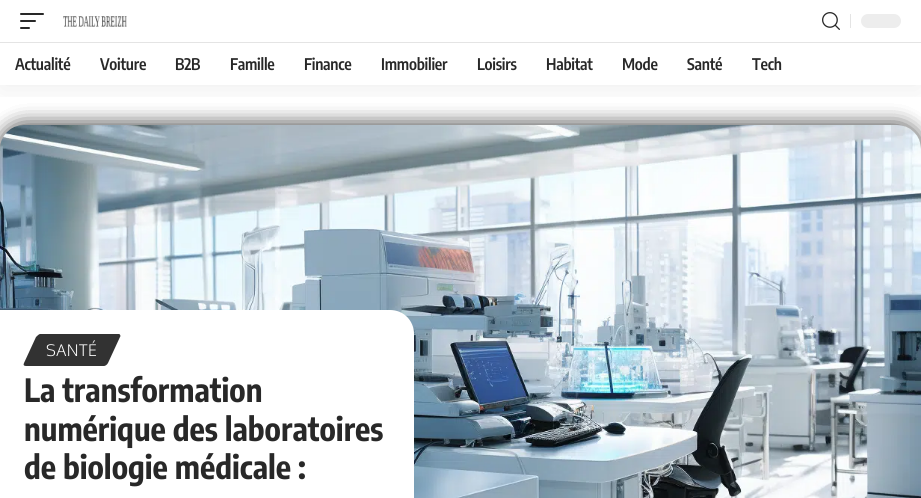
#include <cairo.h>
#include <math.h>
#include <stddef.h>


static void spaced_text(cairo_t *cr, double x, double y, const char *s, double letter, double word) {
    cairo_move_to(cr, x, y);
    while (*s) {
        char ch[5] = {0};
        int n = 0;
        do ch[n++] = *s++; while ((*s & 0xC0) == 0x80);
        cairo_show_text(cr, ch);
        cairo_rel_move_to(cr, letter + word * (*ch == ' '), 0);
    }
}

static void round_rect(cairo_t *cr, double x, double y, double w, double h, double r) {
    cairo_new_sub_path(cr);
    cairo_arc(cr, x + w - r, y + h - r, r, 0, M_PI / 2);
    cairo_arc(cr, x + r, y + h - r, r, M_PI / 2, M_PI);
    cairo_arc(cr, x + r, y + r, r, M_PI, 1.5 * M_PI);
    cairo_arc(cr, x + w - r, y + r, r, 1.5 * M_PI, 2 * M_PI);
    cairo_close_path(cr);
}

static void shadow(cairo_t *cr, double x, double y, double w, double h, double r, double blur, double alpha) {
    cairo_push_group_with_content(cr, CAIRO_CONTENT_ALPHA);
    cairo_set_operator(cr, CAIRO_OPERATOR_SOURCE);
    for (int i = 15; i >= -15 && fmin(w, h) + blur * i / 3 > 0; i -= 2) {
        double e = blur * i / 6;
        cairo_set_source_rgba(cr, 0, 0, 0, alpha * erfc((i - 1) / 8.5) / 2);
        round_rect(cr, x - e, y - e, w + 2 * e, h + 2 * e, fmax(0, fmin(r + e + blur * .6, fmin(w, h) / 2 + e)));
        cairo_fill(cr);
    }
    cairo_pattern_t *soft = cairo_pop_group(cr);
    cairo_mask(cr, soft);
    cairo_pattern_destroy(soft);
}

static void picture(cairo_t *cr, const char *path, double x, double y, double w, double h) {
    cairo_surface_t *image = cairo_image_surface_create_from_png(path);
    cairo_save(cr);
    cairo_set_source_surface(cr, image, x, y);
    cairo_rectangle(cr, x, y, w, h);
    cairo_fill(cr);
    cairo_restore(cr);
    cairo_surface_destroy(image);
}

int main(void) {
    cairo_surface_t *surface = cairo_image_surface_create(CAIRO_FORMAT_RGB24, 921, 498);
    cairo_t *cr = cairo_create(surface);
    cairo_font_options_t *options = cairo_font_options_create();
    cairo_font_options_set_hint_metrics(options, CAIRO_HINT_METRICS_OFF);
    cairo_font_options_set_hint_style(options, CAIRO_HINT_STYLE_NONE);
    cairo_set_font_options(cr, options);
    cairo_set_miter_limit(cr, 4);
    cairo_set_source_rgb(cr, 1, 1, 1);
    cairo_paint(cr);
    cairo_set_source_rgb(cr, 0, 0, 0);
    shadow(cr, 0, 125, 921, 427, 24, 10, 0.31);
    shadow(cr, 0, 125, 921, 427, 24, 10, 0.31);
    shadow(cr, 0, 125, 921, 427, 24, 10, 0.31);
    picture(cr, "img3.png", 0, 125, 921, 373);
    cairo_save(cr);
    cairo_rectangle(cr, 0, 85, 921, 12);
    cairo_clip(cr);
    shadow(cr, 0, 4, 921, 85, 0, 15, 0.07);
    cairo_restore(cr);
    cairo_set_source_rgb(cr, 0.157, 0.157, 0.157);
    round_rect(cr, 20, 13, 24, 2, 1);
    cairo_fill(cr);
    round_rect(cr, 20, 20, 16, 2, 1);
    cairo_fill(cr);
    round_rect(cr, 20, 27, 10, 2, 1);
    cairo_fill(cr);
    picture(cr, "img1.png", 63, 16, 64, 11);
    picture(cr, "img2.png", 822, 12, 18, 18);
    cairo_set_source_rgb(cr, 0.894, 0.894, 0.894);
    cairo_rectangle(cr, 850, 14, 1, 14);
    cairo_fill(cr);
    cairo_set_source_rgb(cr, 0.929, 0.929, 0.929);
    round_rect(cr, 861, 14, 40, 14, 7);
    cairo_fill(cr);
    cairo_set_source_rgb(cr, 0.894, 0.894, 0.894);
    cairo_rectangle(cr, 0, 42, 921, 1);
    cairo_fill(cr);
    cairo_select_font_face(cr, "Encode Sans Condensed SemiBold", CAIRO_FONT_SLANT_NORMAL, CAIRO_FONT_WEIGHT_NORMAL);
    cairo_set_font_size(cr, 16);
    cairo_set_source_rgb(cr, 0.157, 0.157, 0.157);
    spaced_text(cr, 15, 70, "Actualité", -0.25, 0);
    spaced_text(cr, 100, 70, "Voiture", -0.25, 0);
    spaced_text(cr, 175, 70, "B2B", -0.25, 0);
    spaced_text(cr, 230, 70, "Famille", -0.25, 0);
    spaced_text(cr, 304, 70, "Finance", -0.25, 0);
    spaced_text(cr, 381, 70, "Immobilier", -0.25, 0);
    spaced_text(cr, 477, 70, "Loisirs", -0.25, 0);
    spaced_text(cr, 546, 70, "Habitat", -0.25, 0);
    spaced_text(cr, 622, 70, "Mode", -0.25, 0);
    spaced_text(cr, 687, 70, "Santé", -0.25, 0);
    spaced_text(cr, 752, 70, "Tech", -0.25, 0);
    cairo_set_source_rgb(cr, 1, 1, 1);
    cairo_new_path(cr);
    cairo_move_to(cr, 0, 310);
    cairo_line_to(cr, 390, 310);
    cairo_curve_to(cr, 403.5, 310, 414, 320.5, 414, 334);
    cairo_line_to(cr, 414, 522);
    cairo_line_to(cr, 24, 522);
    cairo_curve_to(cr, 10.5, 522, 0, 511.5, 0, 498);
    cairo_close_path(cr);
    cairo_fill(cr);
    cairo_set_source_rgb(cr, 0.196, 0.196, 0.196);
    cairo_new_path(cr);
    cairo_move_to(cr, 40, 334);
    cairo_line_to(cr, 119, 334);
    cairo_curve_to(cr, 120, 334, 121, 336, 120, 337);
    cairo_line_to(cr, 108, 363);
    cairo_curve_to(cr, 107, 365, 105, 366, 104, 366);
    cairo_line_to(cr, 26, 366);
    cairo_curve_to(cr, 24, 366, 23, 365, 24, 363);
    cairo_line_to(cr, 36, 337);
    cairo_curve_to(cr, 37, 336, 39, 334, 40, 334);
    cairo_close_path(cr);
    cairo_fill(cr);
    cairo_select_font_face(cr, "Oxygen Light", CAIRO_FONT_SLANT_NORMAL, CAIRO_FONT_WEIGHT_NORMAL);
    cairo_set_source_rgb(cr, 1, 1, 1);
    spaced_text(cr, 46, 356, "SANTÉ", 0.5, 0);
    cairo_select_font_face(cr, "Encode Sans Condensed", CAIRO_FONT_SLANT_NORMAL, CAIRO_FONT_WEIGHT_BOLD);
    cairo_set_font_size(cr, 32);
    cairo_set_source_rgb(cr, 0.157, 0.157, 0.157);
    cairo_move_to(cr, 24, 402);
    cairo_show_text(cr, "La transformation");
    cairo_move_to(cr, 24, 441);
    cairo_show_text(cr, "numérique des laboratoires");
    cairo_move_to(cr, 24, 479);
    cairo_show_text(cr, "de biologie médicale :");
    cairo_surface_write_to_png(surface, "page.png");
    cairo_font_options_destroy(options);
    cairo_destroy(cr);
    cairo_surface_destroy(surface);
    return 0;
}
